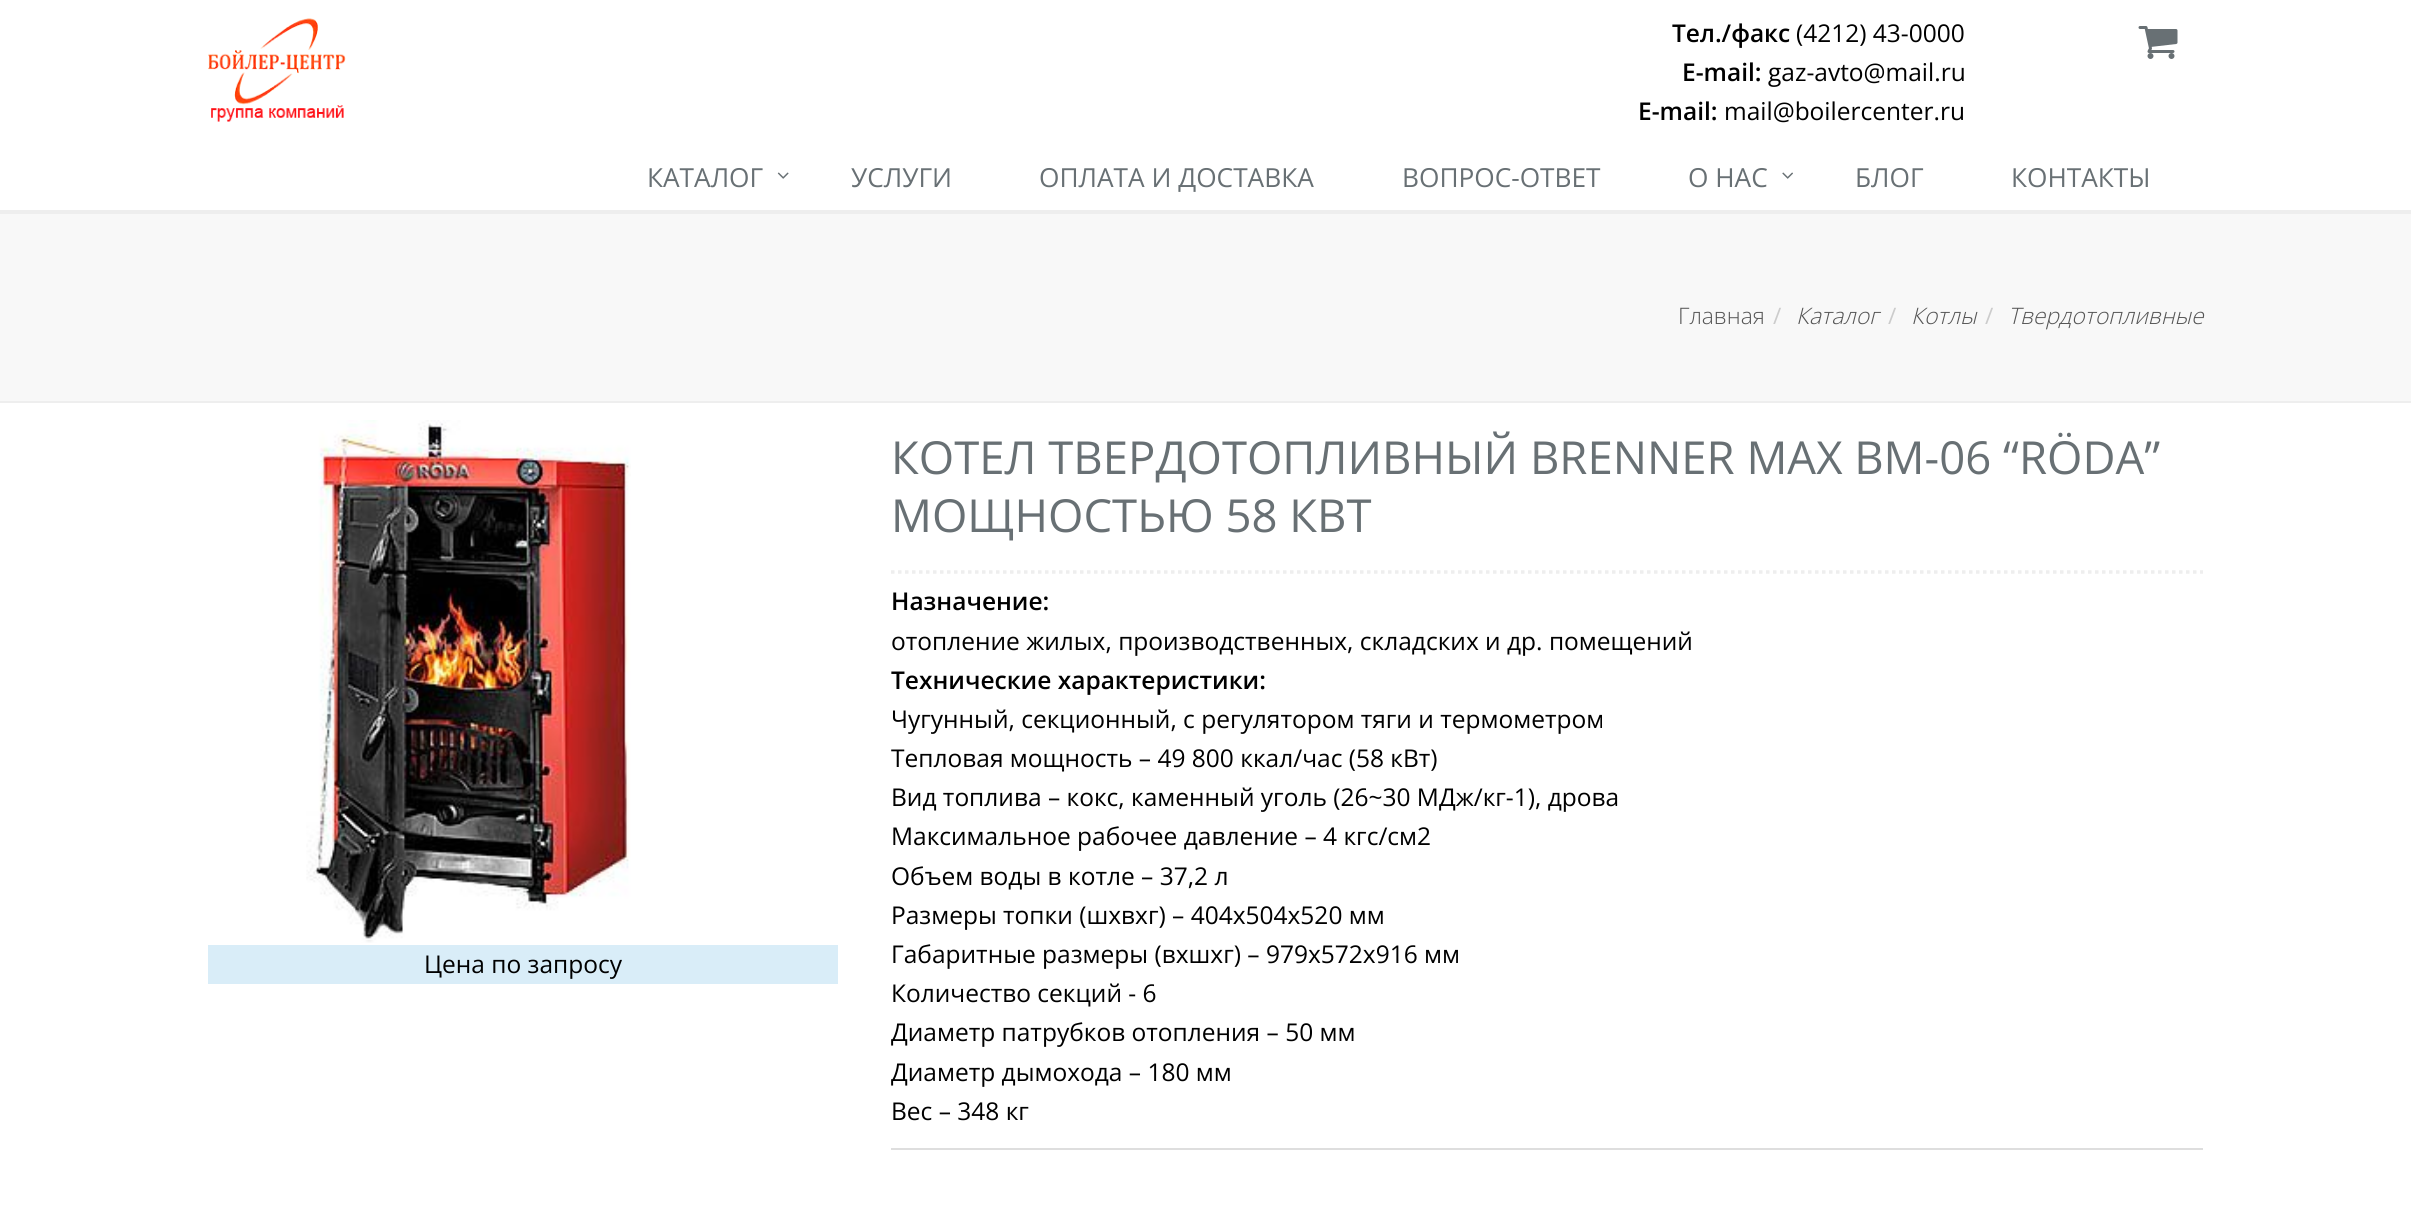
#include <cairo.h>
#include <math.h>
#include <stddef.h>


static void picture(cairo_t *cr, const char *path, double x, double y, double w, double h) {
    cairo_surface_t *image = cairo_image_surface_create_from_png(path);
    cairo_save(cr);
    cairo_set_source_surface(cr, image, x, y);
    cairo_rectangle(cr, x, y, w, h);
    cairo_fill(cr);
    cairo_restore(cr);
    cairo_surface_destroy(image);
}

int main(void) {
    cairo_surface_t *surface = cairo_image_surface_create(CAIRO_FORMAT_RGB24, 2411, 1215);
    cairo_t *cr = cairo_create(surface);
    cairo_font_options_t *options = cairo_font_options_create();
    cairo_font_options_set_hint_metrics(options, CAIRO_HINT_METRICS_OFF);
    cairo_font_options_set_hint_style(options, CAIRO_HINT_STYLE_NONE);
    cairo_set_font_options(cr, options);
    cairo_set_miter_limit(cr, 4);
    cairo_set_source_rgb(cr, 1, 1, 1);
    cairo_paint(cr);
    cairo_set_source_rgb(cr, 0.933, 0.933, 0.933);
    cairo_rectangle(cr, 0, 210, 2411, 4);
    cairo_fill(cr);
    picture(cr, "img1.png", 208, 18, 138, 104);
    cairo_select_font_face(cr, "Open Sans SemiBold", CAIRO_FONT_SLANT_NORMAL, CAIRO_FONT_WEIGHT_NORMAL);
    cairo_set_font_size(cr, 24.5);
    cairo_set_source_rgb(cr, 0, 0, 0);
    cairo_move_to(cr, 1672, 42);
    cairo_show_text(cr, "Тел./факс");
    cairo_select_font_face(cr, "Open Sans", CAIRO_FONT_SLANT_NORMAL, CAIRO_FONT_WEIGHT_NORMAL);
    cairo_move_to(cr, 1796, 42);
    cairo_show_text(cr, "(4212) 43-0000");
    cairo_select_font_face(cr, "Open Sans SemiBold", CAIRO_FONT_SLANT_NORMAL, CAIRO_FONT_WEIGHT_NORMAL);
    cairo_move_to(cr, 1682, 81);
    cairo_show_text(cr, "E-mail:");
    cairo_select_font_face(cr, "Open Sans", CAIRO_FONT_SLANT_NORMAL, CAIRO_FONT_WEIGHT_NORMAL);
    cairo_move_to(cr, 1768, 81);
    cairo_show_text(cr, "gaz-avto@mail.ru");
    cairo_select_font_face(cr, "Open Sans SemiBold", CAIRO_FONT_SLANT_NORMAL, CAIRO_FONT_WEIGHT_NORMAL);
    cairo_move_to(cr, 1638, 120);
    cairo_show_text(cr, "E-mail:");
    cairo_select_font_face(cr, "Open Sans", CAIRO_FONT_SLANT_NORMAL, CAIRO_FONT_WEIGHT_NORMAL);
    cairo_move_to(cr, 1724, 120);
    cairo_show_text(cr, "mail@boilercenter.ru");
    picture(cr, "img2.png", 2138, 26, 40, 33);
    cairo_set_font_size(cr, 26.25);
    cairo_set_source_rgb(cr, 0.408, 0.439, 0.455);
    cairo_move_to(cr, 647, 187);
    cairo_show_text(cr, "КАТАЛОГ");
    picture(cr, "img3.png", 777, 172, 12, 7);
    cairo_move_to(cr, 851, 187);
    cairo_show_text(cr, "УСЛУГИ");
    cairo_move_to(cr, 1039, 187);
    cairo_show_text(cr, "ОПЛАТА И ДОСТАВКА");
    cairo_move_to(cr, 1402, 187);
    cairo_show_text(cr, "ВОПРОС-ОТВЕТ");
    cairo_move_to(cr, 1688, 187);
    cairo_show_text(cr, "О НАС");
    picture(cr, "img4.png", 1782, 172, 11, 7);
    cairo_move_to(cr, 1855, 187);
    cairo_show_text(cr, "БЛОГ");
    cairo_move_to(cr, 2011, 187);
    cairo_show_text(cr, "КОНТАКТЫ");
    cairo_set_source_rgb(cr, 0.969, 0.969, 0.969);
    cairo_rectangle(cr, 0, 214, 2411, 187);
    cairo_fill(cr);
    cairo_set_source_rgb(cr, 0.933, 0.933, 0.933);
    cairo_rectangle(cr, 0, 401, 2411, 2);
    cairo_fill(cr);
    cairo_select_font_face(cr, "Open Sans Light", CAIRO_FONT_SLANT_NORMAL, CAIRO_FONT_WEIGHT_NORMAL);
    cairo_set_font_size(cr, 22.75);
    cairo_set_source_rgb(cr, 0.333, 0.333, 0.333);
    cairo_move_to(cr, 1678, 324);
    cairo_show_text(cr, "Главная");
    cairo_select_font_face(cr, "Open Sans", CAIRO_FONT_SLANT_NORMAL, CAIRO_FONT_WEIGHT_NORMAL);
    cairo_set_source_rgb(cr, 0.8, 0.8, 0.8);
    cairo_move_to(cr, 1773, 324);
    cairo_show_text(cr, "/");
    cairo_select_font_face(cr, "Open Sans Light", CAIRO_FONT_SLANT_ITALIC, CAIRO_FONT_WEIGHT_NORMAL);
    cairo_set_source_rgb(cr, 0.333, 0.333, 0.333);
    cairo_move_to(cr, 1796, 324);
    cairo_show_text(cr, "Каталог");
    cairo_select_font_face(cr, "Open Sans", CAIRO_FONT_SLANT_NORMAL, CAIRO_FONT_WEIGHT_NORMAL);
    cairo_set_source_rgb(cr, 0.8, 0.8, 0.8);
    cairo_move_to(cr, 1888, 324);
    cairo_show_text(cr, "/");
    cairo_select_font_face(cr, "Open Sans Light", CAIRO_FONT_SLANT_ITALIC, CAIRO_FONT_WEIGHT_NORMAL);
    cairo_set_source_rgb(cr, 0.333, 0.333, 0.333);
    cairo_move_to(cr, 1911, 324);
    cairo_show_text(cr, "Котлы");
    cairo_select_font_face(cr, "Open Sans", CAIRO_FONT_SLANT_NORMAL, CAIRO_FONT_WEIGHT_NORMAL);
    cairo_set_source_rgb(cr, 0.8, 0.8, 0.8);
    cairo_move_to(cr, 1985, 324);
    cairo_show_text(cr, "/");
    cairo_select_font_face(cr, "Open Sans Light", CAIRO_FONT_SLANT_ITALIC, CAIRO_FONT_WEIGHT_NORMAL);
    cairo_set_source_rgb(cr, 0.333, 0.333, 0.333);
    cairo_move_to(cr, 2008, 324);
    cairo_show_text(cr, "Твердотопливные");
    picture(cr, "img5.png", 306, 420, 325, 523);
    cairo_set_source_rgb(cr, 0.851, 0.929, 0.969);
    cairo_rectangle(cr, 208, 945, 630, 39);
    cairo_fill(cr);
    cairo_select_font_face(cr, "Open Sans", CAIRO_FONT_SLANT_NORMAL, CAIRO_FONT_WEIGHT_NORMAL);
    cairo_set_font_size(cr, 24.5);
    cairo_set_source_rgb(cr, 0, 0, 0);
    cairo_move_to(cr, 424, 973);
    cairo_show_text(cr, "Цена по запросу");
    cairo_set_source_rgb(cr, 0.871, 0.871, 0.871);
    cairo_rectangle(cr, 891, 1148, 1312, 2);
    cairo_fill(cr);
    cairo_set_font_size(cr, 45.5);
    cairo_set_source_rgb(cr, 0.408, 0.439, 0.455);
    cairo_move_to(cr, 891, 474);
    cairo_show_text(cr, "КОТЕЛ ТВЕРДОТОПЛИВНЫЙ BRENNER MAX BM-06 “RÖDA”");
    cairo_move_to(cr, 891, 532);
    cairo_show_text(cr, "МОЩНОСТЬЮ 58 КВТ");
    cairo_new_path(cr);
    cairo_move_to(cr, 891, 572);
    cairo_line_to(cr, 2203, 572);
    cairo_set_source_rgb(cr, 0.933, 0.933, 0.933);
    cairo_set_line_width(cr, 3.5);
    cairo_set_dash(cr, (double[]){3.5, 3.5}, 2, 0);
    cairo_stroke(cr);
    cairo_select_font_face(cr, "Open Sans SemiBold", CAIRO_FONT_SLANT_NORMAL, CAIRO_FONT_WEIGHT_NORMAL);
    cairo_set_font_size(cr, 24.5);
    cairo_set_source_rgb(cr, 0, 0, 0);
    cairo_move_to(cr, 891, 610);
    cairo_show_text(cr, "Назначение:");
    cairo_select_font_face(cr, "Open Sans", CAIRO_FONT_SLANT_NORMAL, CAIRO_FONT_WEIGHT_NORMAL);
    cairo_move_to(cr, 891, 650);
    cairo_show_text(cr, "отопление жилых, производственных, складских и др. помещений");
    cairo_select_font_face(cr, "Open Sans SemiBold", CAIRO_FONT_SLANT_NORMAL, CAIRO_FONT_WEIGHT_NORMAL);
    cairo_move_to(cr, 891, 689);
    cairo_show_text(cr, "Технические характеристики:");
    cairo_select_font_face(cr, "Open Sans", CAIRO_FONT_SLANT_NORMAL, CAIRO_FONT_WEIGHT_NORMAL);
    cairo_move_to(cr, 891, 728);
    cairo_show_text(cr, "Чугунный, секционный, с регулятором тяги и термометром");
    cairo_move_to(cr, 891, 767);
    cairo_show_text(cr, "Тепловая мощность – 49 800 ккал/час (58 кВт)");
    cairo_move_to(cr, 891, 806);
    cairo_show_text(cr, "Вид топлива – кокс, каменный уголь (26~30 МДж/кг-1), дрова");
    cairo_move_to(cr, 891, 845);
    cairo_show_text(cr, "Максимальное рабочее давление – 4 кгс/см2");
    cairo_move_to(cr, 891, 885);
    cairo_show_text(cr, "Объем воды в котле – 37,2 л");
    cairo_move_to(cr, 891, 924);
    cairo_show_text(cr, "Размеры топки (шхвхг) – 404х504х520 мм");
    cairo_move_to(cr, 891, 963);
    cairo_show_text(cr, "Габаритные размеры (вхшхг) – 979х572х916 мм");
    cairo_move_to(cr, 891, 1002);
    cairo_show_text(cr, "Количество секций - 6");
    cairo_save(cr);
    cairo_rectangle(cr, 891, 420, 1312, 728);
    cairo_clip(cr);
    cairo_move_to(cr, 891, 1041);
    cairo_show_text(cr, "Диаметр патрубков отопления – 50 мм");
    cairo_move_to(cr, 891, 1081);
    cairo_show_text(cr, "Диаметр дымохода – 180 мм");
    cairo_restore(cr);
    cairo_move_to(cr, 891, 1120);
    cairo_show_text(cr, "Вес – 348 кг");
    cairo_surface_write_to_png(surface, "page.png");
    cairo_font_options_destroy(options);
    cairo_destroy(cr);
    cairo_surface_destroy(surface);
    return 0;
}
